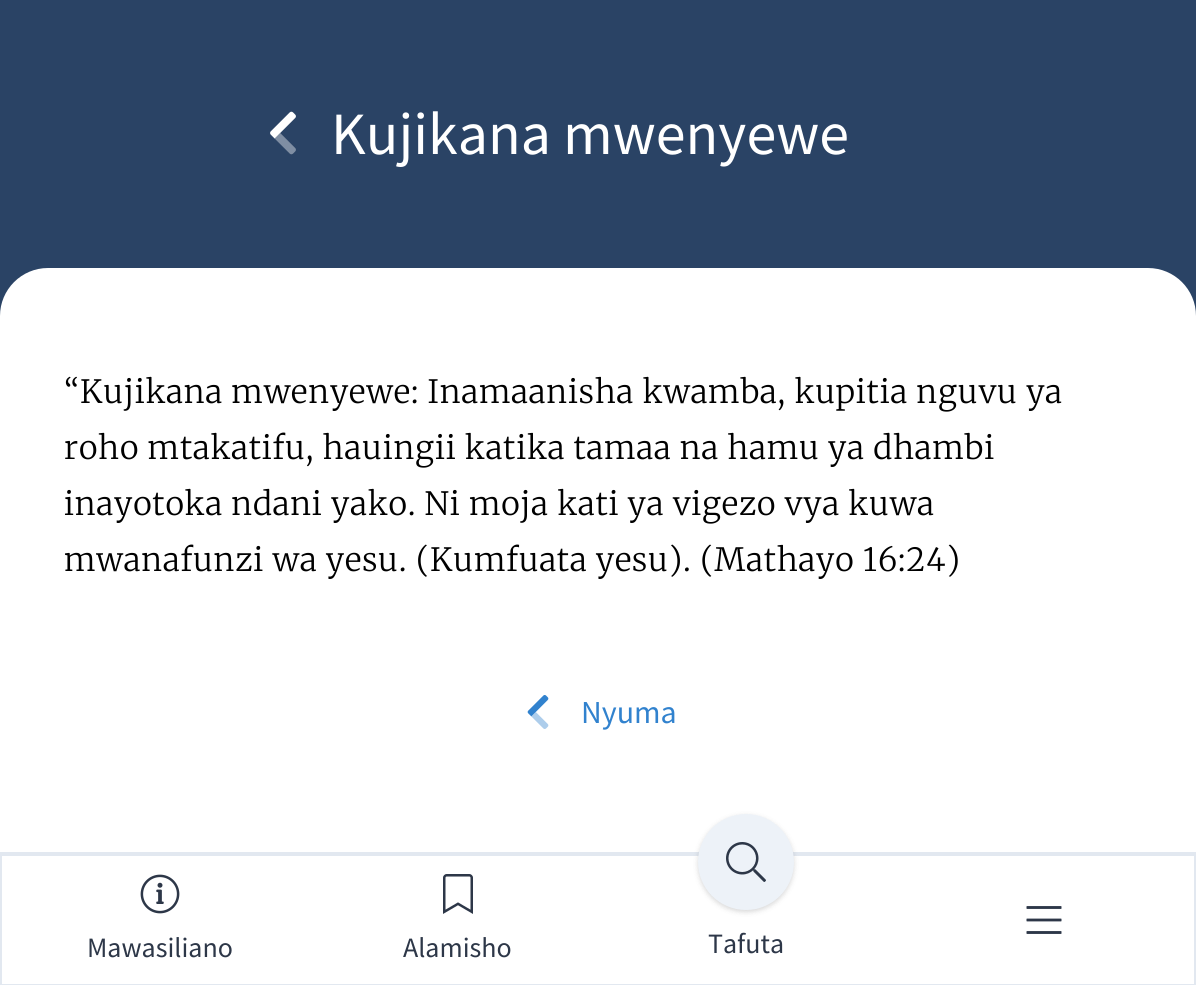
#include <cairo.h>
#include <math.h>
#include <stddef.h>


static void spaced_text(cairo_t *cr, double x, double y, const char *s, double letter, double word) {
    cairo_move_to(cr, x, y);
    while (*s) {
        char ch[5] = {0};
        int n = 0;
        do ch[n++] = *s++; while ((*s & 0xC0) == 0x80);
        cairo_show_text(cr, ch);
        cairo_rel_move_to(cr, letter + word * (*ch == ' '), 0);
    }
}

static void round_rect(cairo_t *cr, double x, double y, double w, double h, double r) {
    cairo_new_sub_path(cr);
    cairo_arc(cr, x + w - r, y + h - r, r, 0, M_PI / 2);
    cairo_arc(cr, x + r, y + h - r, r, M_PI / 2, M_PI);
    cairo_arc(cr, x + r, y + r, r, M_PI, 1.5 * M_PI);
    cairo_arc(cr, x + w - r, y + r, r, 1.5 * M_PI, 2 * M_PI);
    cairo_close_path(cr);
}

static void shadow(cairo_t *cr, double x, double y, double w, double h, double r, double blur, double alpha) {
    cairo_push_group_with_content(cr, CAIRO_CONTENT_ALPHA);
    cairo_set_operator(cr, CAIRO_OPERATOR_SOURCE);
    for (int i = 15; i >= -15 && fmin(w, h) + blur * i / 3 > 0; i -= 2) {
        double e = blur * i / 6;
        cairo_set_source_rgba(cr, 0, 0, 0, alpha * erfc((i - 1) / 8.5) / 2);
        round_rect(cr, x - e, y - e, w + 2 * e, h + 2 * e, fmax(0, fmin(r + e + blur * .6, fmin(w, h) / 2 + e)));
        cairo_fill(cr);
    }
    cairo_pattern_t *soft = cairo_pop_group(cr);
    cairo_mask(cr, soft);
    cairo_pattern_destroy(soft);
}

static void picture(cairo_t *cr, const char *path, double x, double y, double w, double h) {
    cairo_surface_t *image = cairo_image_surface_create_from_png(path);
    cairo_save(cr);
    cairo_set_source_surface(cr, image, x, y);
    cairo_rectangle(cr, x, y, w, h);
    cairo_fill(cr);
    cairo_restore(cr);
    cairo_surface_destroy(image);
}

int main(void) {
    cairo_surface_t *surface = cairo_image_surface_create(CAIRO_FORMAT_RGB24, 1196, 985);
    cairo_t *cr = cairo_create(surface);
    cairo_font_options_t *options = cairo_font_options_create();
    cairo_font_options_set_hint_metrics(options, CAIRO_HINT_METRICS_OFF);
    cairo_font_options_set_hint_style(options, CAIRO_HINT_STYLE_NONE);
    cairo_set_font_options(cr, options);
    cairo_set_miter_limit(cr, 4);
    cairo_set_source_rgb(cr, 0.165, 0.263, 0.396);
    cairo_paint(cr);
    picture(cr, "img1.png", 270, 111, 26, 44);
    cairo_select_font_face(cr, "Source Sans Pro", CAIRO_FONT_SLANT_NORMAL, CAIRO_FONT_WEIGHT_NORMAL);
    cairo_set_font_size(cr, 60);
    cairo_set_source_rgb(cr, 1, 1, 1);
    cairo_move_to(cr, 331, 154);
    cairo_show_text(cr, "Kujikana mwenyewe");
    cairo_new_path(cr);
    cairo_move_to(cr, 48, 268);
    cairo_line_to(cr, 1148, 268);
    cairo_curve_to(cr, 1174.5, 268, 1196, 289.5, 1196, 316);
    cairo_line_to(cr, 1196, 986);
    cairo_line_to(cr, 0, 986);
    cairo_line_to(cr, 0, 316);
    cairo_curve_to(cr, 0, 289.5, 21.5, 268, 48, 268);
    cairo_close_path(cr);
    cairo_fill(cr);
    cairo_select_font_face(cr, "Merriweather Light", CAIRO_FONT_SLANT_NORMAL, CAIRO_FONT_WEIGHT_NORMAL);
    cairo_set_font_size(cr, 32);
    cairo_set_source_rgb(cr, 0, 0, 0);
    spaced_text(cr, 64, 403, "“Kujikana mwenyewe: Inamaanisha kwamba, kupitia nguvu ya", 0.8, 0);
    spaced_text(cr, 64, 459, "roho mtakatifu, hauingii katika tamaa na hamu ya dhambi", 0.8, 0);
    spaced_text(cr, 64, 515, "inayotoka ndani yako. Ni moja kati ya vigezo vya kuwa", 0.8, 0);
    spaced_text(cr, 64, 571, "mwanafunzi wa yesu. (Kumfuata yesu). (Mathayo 16:24)", 0.8, 0);
    picture(cr, "img2.png", 527, 695, 22, 34);
    cairo_select_font_face(cr, "Source Sans Pro", CAIRO_FONT_SLANT_NORMAL, CAIRO_FONT_WEIGHT_NORMAL);
    cairo_set_source_rgb(cr, 0.192, 0.51, 0.808);
    cairo_move_to(cr, 581, 723);
    cairo_show_text(cr, "Nyuma");
    cairo_set_source_rgb(cr, 0.886, 0.91, 0.941);
    cairo_rectangle(cr, 0, 852, 1196, 4);
    cairo_fill(cr);
    cairo_rectangle(cr, 1194, 852, 2, 133);
    cairo_fill(cr);
    cairo_rectangle(cr, 0, 984, 1196, 1);
    cairo_fill(cr);
    cairo_rectangle(cr, 0, 852, 2, 133);
    cairo_fill(cr);
    picture(cr, "img3.png", 1026, 906, 36, 28);
    picture(cr, "img4.png", 140, 874, 40, 40);
    cairo_set_font_size(cr, 28);
    cairo_set_source_rgb(cr, 0.176, 0.216, 0.282);
    cairo_move_to(cr, 87, 957);
    cairo_show_text(cr, "Mawasiliano");
    picture(cr, "img5.png", 443, 874, 30, 40);
    cairo_move_to(cr, 403, 957);
    cairo_show_text(cr, "Alamisho");
    cairo_set_source_rgb(cr, 0, 0, 0);
    shadow(cr, 698, 816, 96, 96, 48, 2, 0.06);
    shadow(cr, 698, 816, 96, 96, 48, 3, 0.1);
    cairo_set_source_rgb(cr, 0.929, 0.949, 0.969);
    cairo_arc(cr, 746, 862, 48, 0, 2 * M_PI);
    cairo_fill(cr);
    picture(cr, "img6.png", 726, 842, 40, 40);
    cairo_set_source_rgb(cr, 0.176, 0.216, 0.282);
    cairo_move_to(cr, 708, 953);
    cairo_show_text(cr, "Tafuta");
    cairo_surface_write_to_png(surface, "page.png");
    cairo_font_options_destroy(options);
    cairo_destroy(cr);
    cairo_surface_destroy(surface);
    return 0;
}
